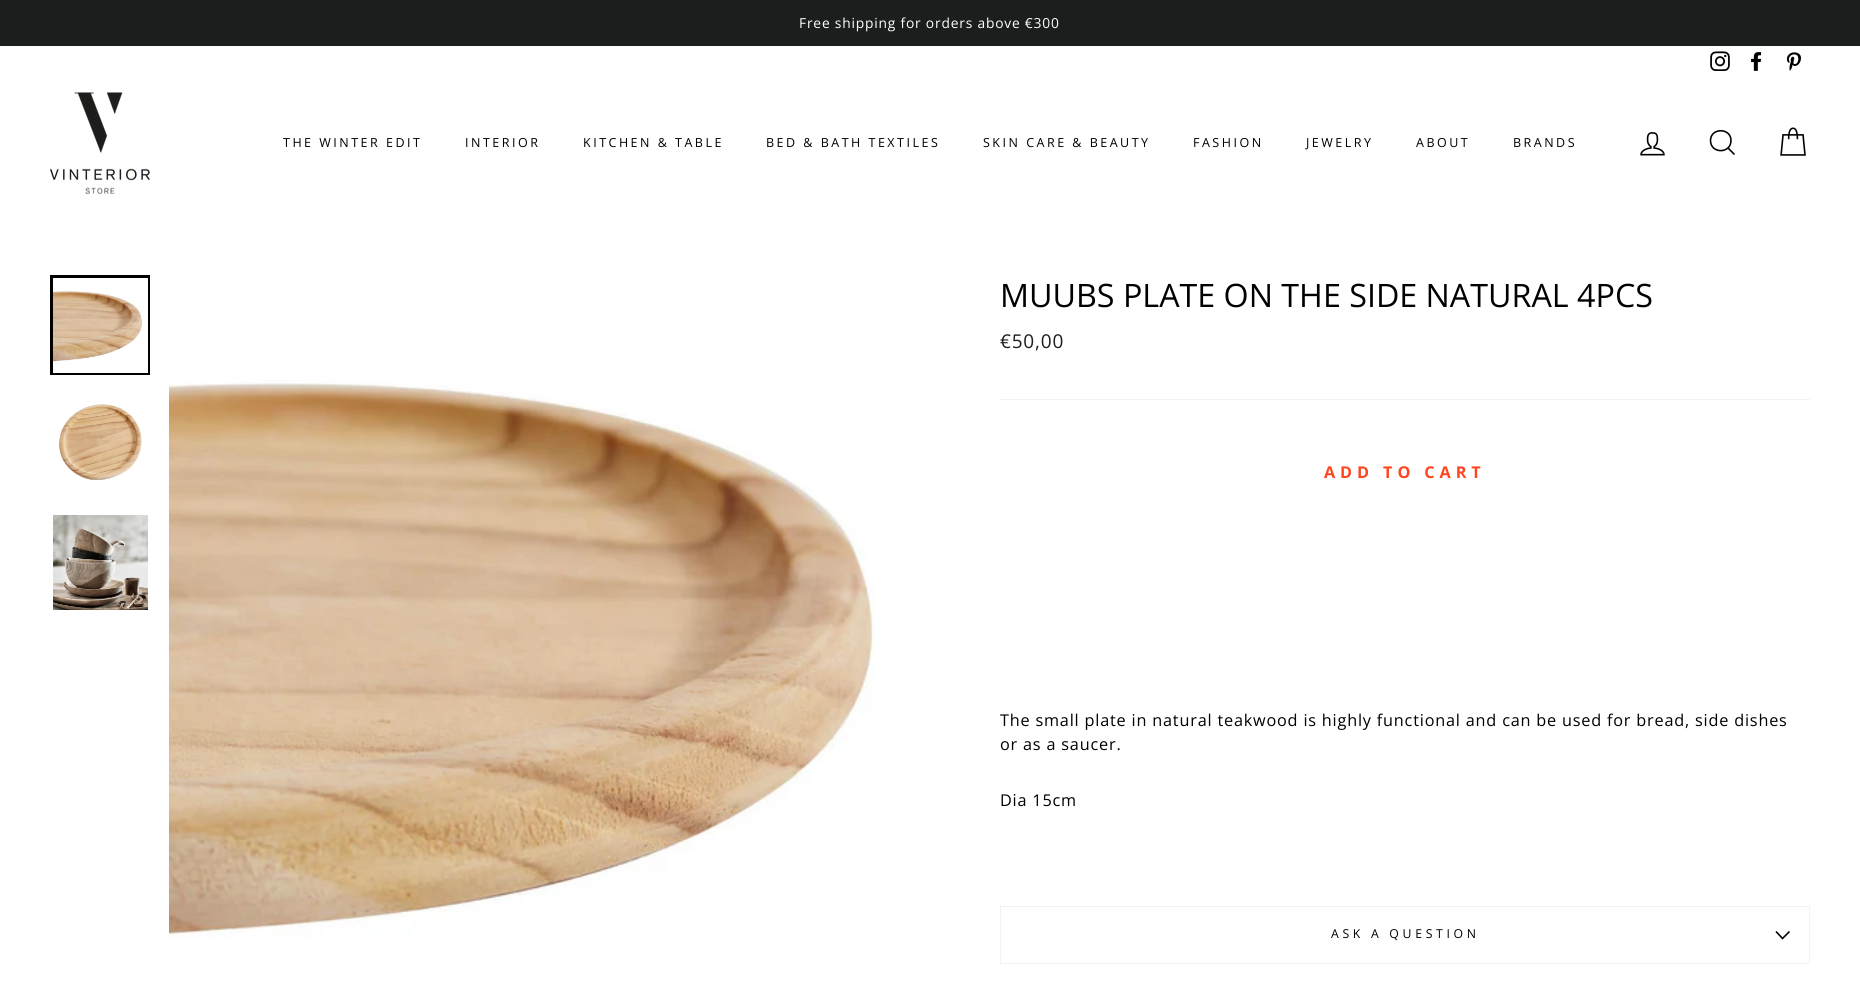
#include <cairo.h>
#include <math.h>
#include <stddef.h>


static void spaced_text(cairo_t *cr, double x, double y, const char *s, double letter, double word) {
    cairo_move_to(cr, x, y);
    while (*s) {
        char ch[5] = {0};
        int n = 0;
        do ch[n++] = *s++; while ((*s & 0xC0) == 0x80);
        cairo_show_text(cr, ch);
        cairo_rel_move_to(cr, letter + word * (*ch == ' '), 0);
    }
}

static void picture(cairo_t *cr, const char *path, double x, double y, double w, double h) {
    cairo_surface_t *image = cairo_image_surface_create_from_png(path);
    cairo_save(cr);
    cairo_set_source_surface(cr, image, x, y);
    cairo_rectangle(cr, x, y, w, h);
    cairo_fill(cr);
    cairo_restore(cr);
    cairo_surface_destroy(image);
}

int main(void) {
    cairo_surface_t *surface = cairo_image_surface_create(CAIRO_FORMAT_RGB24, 1860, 985);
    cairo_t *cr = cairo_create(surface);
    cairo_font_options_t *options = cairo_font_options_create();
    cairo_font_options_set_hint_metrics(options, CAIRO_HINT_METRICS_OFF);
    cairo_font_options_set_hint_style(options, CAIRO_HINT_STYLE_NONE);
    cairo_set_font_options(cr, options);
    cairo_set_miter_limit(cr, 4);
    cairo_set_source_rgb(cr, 1, 1, 1);
    cairo_paint(cr);
    cairo_set_source_rgb(cr, 0.11, 0.114, 0.114);
    cairo_rectangle(cr, 0, 0, 1860, 46);
    cairo_fill(cr);
    cairo_select_font_face(cr, "Open Sans", CAIRO_FONT_SLANT_NORMAL, CAIRO_FONT_WEIGHT_NORMAL);
    cairo_set_font_size(cr, 13.8);
    cairo_set_source_rgb(cr, 1, 1, 1);
    spaced_text(cr, 799, 28, "Free shipping for orders above €300", 0.8, 0);
    picture(cr, "img1.png", 1710, 51, 20, 20);
    picture(cr, "img2.png", 1751, 52, 11, 19);
    picture(cr, "img3.png", 1787, 52, 14, 19);
    picture(cr, "img4.png", 50, 92, 100, 102);
    cairo_set_font_size(cr, 12.5);
    cairo_set_source_rgb(cr, 0, 0, 0);
    spaced_text(cr, 283, 147, "THE WINTER EDIT", 2.5, 0);
    spaced_text(cr, 465, 147, "INTERIOR", 2.5, 0);
    spaced_text(cr, 583, 147, "KITCHEN & TABLE", 2.5, 0);
    spaced_text(cr, 766, 147, "BED & BATH TEXTILES", 2.5, 0);
    spaced_text(cr, 983, 147, "SKIN CARE & BEAUTY", 2.5, 0);
    spaced_text(cr, 1193, 147, "FASHION", 2.5, 0);
    spaced_text(cr, 1306, 147, "JEWELRY", 2.5, 0);
    spaced_text(cr, 1416, 147, "ABOUT", 2.5, 0);
    spaced_text(cr, 1513, 147, "BRANDS", 2.5, 0);
    picture(cr, "img5.png", 1640, 132, 25, 24);
    cairo_new_path(cr);
    cairo_move_to(cr, 1731, 140.5);
    cairo_curve_to(cr, 1731, 154, 1710.5, 154, 1710.5, 140.5);
    cairo_curve_to(cr, 1710.5, 127.5, 1731, 127.5, 1731, 140.5);
    cairo_close_path(cr);
    cairo_move_to(cr, 1734.5, 154.5);
    cairo_line_to(cr, 1728, 148);
    cairo_set_line_width(cr, 1.6);
    cairo_stroke(cr);
    picture(cr, "img6.png", 1780, 127, 26, 29);
    cairo_rectangle(cr, 51.5, 276.5, 97, 97);
    cairo_set_line_width(cr, 3);
    cairo_stroke(cr);
    cairo_set_source_rgb(cr, 1, 1, 1);
    cairo_rectangle(cr, 53, 278, 95, 95);
    cairo_fill(cr);
    picture(cr, "img7.png", 53, 291, 90, 71);
    picture(cr, "img8.png", 59, 404, 83, 77);
    picture(cr, "img9.png", 53, 515, 95, 95);
    picture(cr, "img10.png", 169, 380, 706, 559);
    cairo_set_font_size(cr, 32.25);
    cairo_set_source_rgb(cr, 0, 0, 0);
    cairo_move_to(cr, 1000, 307);
    cairo_show_text(cr, "MUUBS PLATE ON THE SIDE NATURAL 4PCS");
    cairo_set_font_size(cr, 19);
    cairo_set_source_rgb(cr, 0.11, 0.114, 0.114);
    spaced_text(cr, 1000, 348, "€50,00", 0.8, 0);
    cairo_set_source_rgb(cr, 0.949, 0.949, 0.949);
    cairo_rectangle(cr, 1000, 399, 810, 1);
    cairo_fill(cr);
    cairo_select_font_face(cr, "Open Sans", CAIRO_FONT_SLANT_NORMAL, CAIRO_FONT_WEIGHT_BOLD);
    cairo_set_font_size(cr, 16.25);
    cairo_set_source_rgb(cr, 1, 0.275, 0.125);
    spaced_text(cr, 1324, 478, "ADD TO CART", 4.9, 0);
    cairo_select_font_face(cr, "Open Sans", CAIRO_FONT_SLANT_NORMAL, CAIRO_FONT_WEIGHT_NORMAL);
    cairo_set_source_rgb(cr, 0, 0, 0);
    spaced_text(cr, 1000, 726, "The small plate in natural teakwood is highly functional and can be used for bread, side dishes", 0.8, 0);
    spaced_text(cr, 1000, 750, "or as a saucer.", 0.8, 0);
    spaced_text(cr, 1000, 806, "Dia 15cm", 0.8, 0);
    cairo_set_source_rgb(cr, 0.949, 0.949, 0.949);
    cairo_rectangle(cr, 1000, 963, 810, 1);
    cairo_fill(cr);
    cairo_rectangle(cr, 1000, 906, 810, 1);
    cairo_fill(cr);
    cairo_rectangle(cr, 1809, 906, 1, 57);
    cairo_fill(cr);
    cairo_rectangle(cr, 1000, 906, 1, 57);
    cairo_fill(cr);
    cairo_set_font_size(cr, 12.25);
    cairo_set_source_rgb(cr, 0, 0, 0);
    spaced_text(cr, 1331, 938, "ASK A QUESTION", 3.7, 0);
    cairo_new_path(cr);
    cairo_move_to(cr, 1776, 931.5);
    cairo_line_to(cr, 1782.5, 938.5);
    cairo_line_to(cr, 1789.5, 931.5);
    cairo_set_line_width(cr, 1.6);
    cairo_stroke(cr);
    cairo_surface_write_to_png(surface, "page.png");
    cairo_font_options_destroy(options);
    cairo_destroy(cr);
    cairo_surface_destroy(surface);
    return 0;
}
